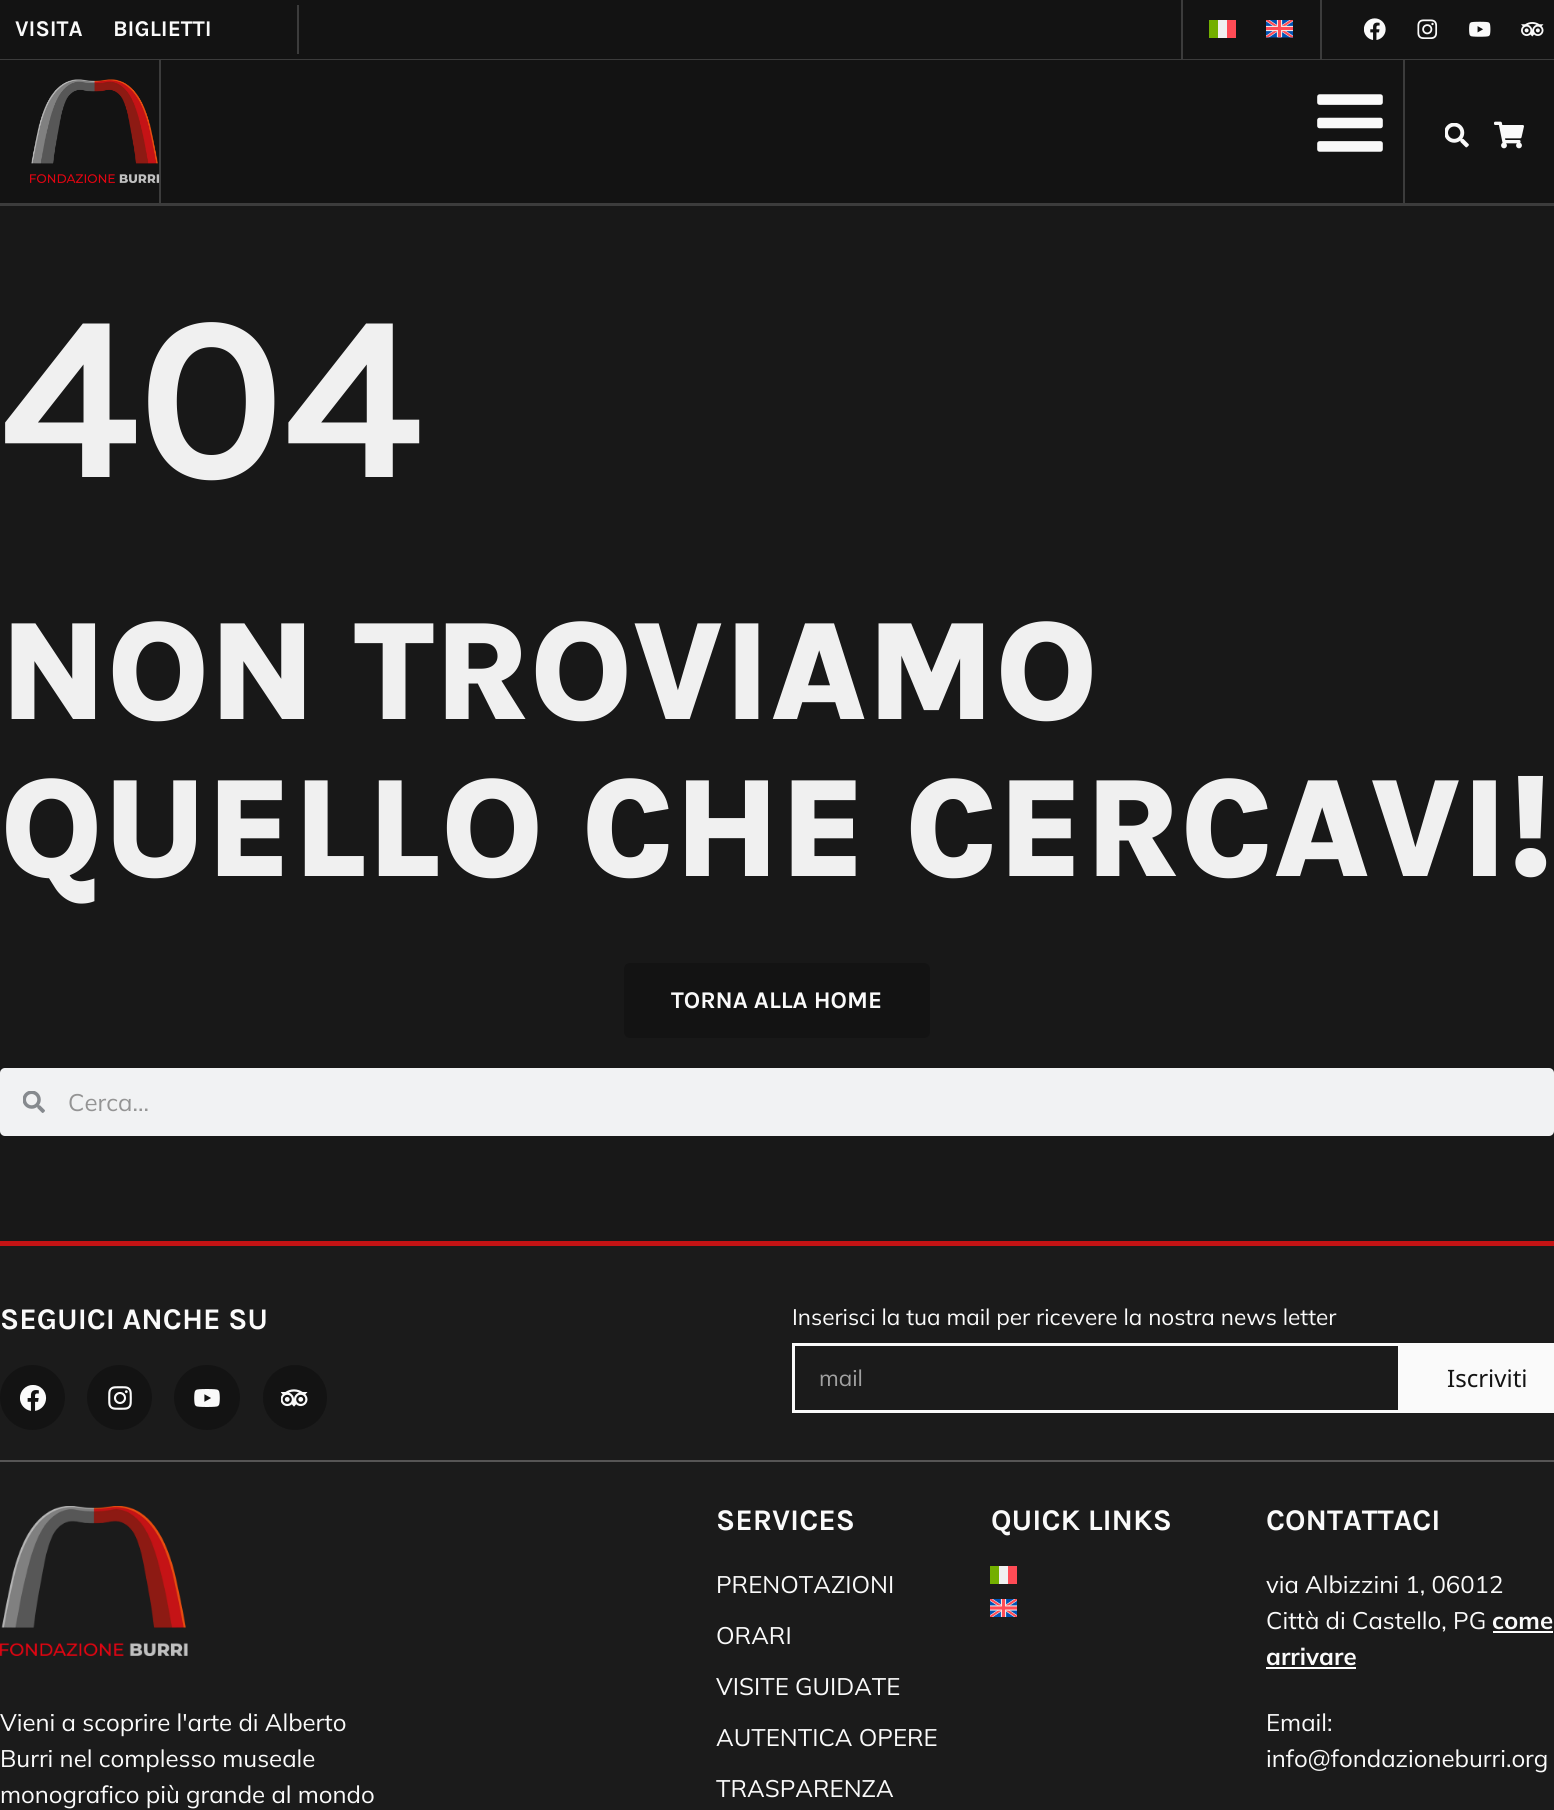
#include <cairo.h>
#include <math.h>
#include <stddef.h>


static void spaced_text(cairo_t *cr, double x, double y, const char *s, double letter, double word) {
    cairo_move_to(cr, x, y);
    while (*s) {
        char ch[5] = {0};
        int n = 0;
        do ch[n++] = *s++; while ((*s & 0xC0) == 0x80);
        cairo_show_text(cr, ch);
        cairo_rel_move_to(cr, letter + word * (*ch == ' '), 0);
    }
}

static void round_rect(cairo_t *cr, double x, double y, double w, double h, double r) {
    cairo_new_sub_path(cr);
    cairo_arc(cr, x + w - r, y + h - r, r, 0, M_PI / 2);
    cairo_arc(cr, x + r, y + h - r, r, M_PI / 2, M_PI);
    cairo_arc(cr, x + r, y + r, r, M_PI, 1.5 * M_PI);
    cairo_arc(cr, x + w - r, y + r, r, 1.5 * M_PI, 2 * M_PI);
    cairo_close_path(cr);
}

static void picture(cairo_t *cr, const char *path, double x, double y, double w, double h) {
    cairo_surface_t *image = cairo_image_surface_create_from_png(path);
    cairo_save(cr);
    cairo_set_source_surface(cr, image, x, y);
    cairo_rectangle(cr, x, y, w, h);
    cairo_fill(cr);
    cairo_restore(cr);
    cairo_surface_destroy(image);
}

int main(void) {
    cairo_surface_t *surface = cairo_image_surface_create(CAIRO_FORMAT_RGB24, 1554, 1810);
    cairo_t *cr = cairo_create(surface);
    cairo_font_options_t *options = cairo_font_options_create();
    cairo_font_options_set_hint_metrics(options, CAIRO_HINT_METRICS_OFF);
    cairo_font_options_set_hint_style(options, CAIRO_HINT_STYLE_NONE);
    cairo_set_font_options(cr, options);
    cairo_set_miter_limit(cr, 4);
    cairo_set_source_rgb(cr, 0.094, 0.094, 0.094);
    cairo_paint(cr);
    cairo_set_source_rgb(cr, 0.078, 0.078, 0.078);
    cairo_rectangle(cr, 0, 0, 1554, 59);
    cairo_fill(cr);
    cairo_set_source_rgb(cr, 0.235, 0.235, 0.235);
    cairo_rectangle(cr, 0, 59, 1554, 1);
    cairo_fill(cr);
    cairo_rectangle(cr, 297, 5, 2, 49);
    cairo_fill(cr);
    cairo_select_font_face(cr, "Karla", CAIRO_FONT_SLANT_NORMAL, CAIRO_FONT_WEIGHT_BOLD);
    cairo_set_font_size(cr, 22.5);
    cairo_set_source_rgb(cr, 0.98, 0.98, 0.98);
    cairo_move_to(cr, 15, 36);
    cairo_show_text(cr, "VISITA");
    cairo_move_to(cr, 113, 36);
    cairo_show_text(cr, "BIGLIETTI");
    cairo_set_source_rgb(cr, 0.235, 0.235, 0.235);
    cairo_rectangle(cr, 1181, 0, 2, 59);
    cairo_fill(cr);
    cairo_set_source_rgb(cr, 0.451, 0.686, 0);
    cairo_rectangle(cr, 1209, 20, 9, 18);
    cairo_fill(cr);
    cairo_set_source_rgb(cr, 0.941, 0.941, 0.941);
    cairo_rectangle(cr, 1218, 20, 9, 18);
    cairo_fill(cr);
    cairo_set_source_rgb(cr, 1, 0.294, 0.333);
    cairo_rectangle(cr, 1227, 20, 9, 18);
    cairo_fill(cr);
    picture(cr, "img1.png", 1266, 20, 27, 18);
    cairo_set_source_rgb(cr, 0.235, 0.235, 0.235);
    cairo_rectangle(cr, 1320, 0, 2, 59);
    cairo_fill(cr);
    picture(cr, "img2.png", 1364, 18, 22, 22);
    picture(cr, "img3.png", 1417, 19, 21, 20);
    picture(cr, "img4.png", 1469, 21, 22, 16);
    picture(cr, "img5.png", 1521, 22, 23, 15);
    cairo_set_source_rgb(cr, 0.078, 0.078, 0.078);
    cairo_rectangle(cr, 0, 60, 1554, 143);
    cairo_fill(cr);
    cairo_set_source_rgb(cr, 0.235, 0.235, 0.235);
    cairo_rectangle(cr, 0, 203, 1554, 3);
    cairo_fill(cr);
    picture(cr, "img6.png", 30, 79, 129, 104);
    cairo_rectangle(cr, 159, 60, 2, 143);
    cairo_fill(cr);
    picture(cr, "img7.png", 1317, 94, 66, 58);
    cairo_rectangle(cr, 1403, 60, 2, 143);
    cairo_fill(cr);
    picture(cr, "img8.png", 1445, 123, 24, 25);
    picture(cr, "img9.png", 1494, 121, 30, 28);
    cairo_set_font_size(cr, 234);
    cairo_set_source_rgb(cr, 0.941, 0.941, 0.941);
    spaced_text(cr, 0, 477, "404", -2, 0);
    cairo_select_font_face(cr, "Karla ExtraBold", CAIRO_FONT_SLANT_NORMAL, CAIRO_FONT_WEIGHT_NORMAL);
    cairo_set_font_size(cr, 142.5);
    spaced_text(cr, 0, 719, "NON TROVIAMO", -0.4, 0);
    spaced_text(cr, 0, 876, "QUELLO CHE CERCAVI!", -0.4, 0);
    cairo_set_source_rgb(cr, 0.078, 0.078, 0.078);
    round_rect(cr, 624, 963, 306, 75, 6);
    cairo_fill(cr);
    cairo_select_font_face(cr, "Karla", CAIRO_FONT_SLANT_NORMAL, CAIRO_FONT_WEIGHT_BOLD);
    cairo_set_font_size(cr, 24);
    cairo_set_source_rgb(cr, 0.98, 0.98, 0.98);
    cairo_move_to(cr, 671, 1008);
    cairo_show_text(cr, "TORNA ALLA HOME");
    cairo_set_source_rgb(cr, 0.945, 0.949, 0.953);
    round_rect(cr, 0, 1068, 1554, 68, 5);
    cairo_fill(cr);
    picture(cr, "img10.png", 23, 1091, 22, 22);
    cairo_select_font_face(cr, "Mulish", CAIRO_FONT_SLANT_NORMAL, CAIRO_FONT_WEIGHT_NORMAL);
    cairo_set_source_rgb(cr, 0.58, 0.58, 0.58);
    cairo_move_to(cr, 68, 1111);
    cairo_show_text(cr, "Cerca...");
    cairo_set_source_rgb(cr, 0.106, 0.106, 0.106);
    cairo_rectangle(cr, 0, 1246, 1554, 564);
    cairo_fill(cr);
    cairo_set_source_rgb(cr, 0.769, 0.075, 0.082);
    cairo_rectangle(cr, 0, 1241, 1554, 5);
    cairo_fill(cr);
    cairo_set_source_rgb(cr, 0.337, 0.333, 0.333);
    cairo_rectangle(cr, 0, 1460, 1554, 2);
    cairo_fill(cr);
    cairo_select_font_face(cr, "Karla", CAIRO_FONT_SLANT_NORMAL, CAIRO_FONT_WEIGHT_BOLD);
    cairo_set_font_size(cr, 30);
    cairo_set_source_rgb(cr, 0.98, 0.98, 0.98);
    cairo_move_to(cr, 0, 1329);
    cairo_show_text(cr, "SEGUICI ANCHE SU");
    cairo_set_source_rgb(cr, 0.078, 0.078, 0.078);
    cairo_new_path(cr);
    cairo_arc(cr, 32.5, 1397.5, 32.5, 0, 2 * M_PI);
    cairo_fill(cr);
    picture(cr, "img11.png", 20, 1385, 27, 26);
    cairo_arc(cr, 119.5, 1397.5, 32.5, 0, 2 * M_PI);
    cairo_fill(cr);
    picture(cr, "img12.png", 108, 1386, 24, 24);
    round_rect(cr, 174, 1365, 66, 65, 32.5);
    cairo_fill(cr);
    picture(cr, "img13.png", 194, 1389, 26, 18);
    round_rect(cr, 263, 1365, 64, 65, 32);
    cairo_fill(cr);
    picture(cr, "img14.png", 281, 1389, 27, 18);
    cairo_select_font_face(cr, "Mulish", CAIRO_FONT_SLANT_NORMAL, CAIRO_FONT_WEIGHT_NORMAL);
    cairo_set_font_size(cr, 22.5);
    cairo_set_source_rgb(cr, 0.98, 0.98, 0.98);
    cairo_move_to(cr, 792, 1325);
    cairo_show_text(cr, "Inserisci la tua mail per ricevere la nostra news letter");
    cairo_rectangle(cr, 793.5, 1344.5, 606, 67);
    cairo_set_line_width(cr, 3);
    cairo_stroke(cr);
    cairo_set_source_rgb(cr, 0.631, 0.631, 0.631);
    cairo_move_to(cr, 819, 1386);
    cairo_show_text(cr, "mail");
    cairo_set_source_rgb(cr, 0.98, 0.98, 0.98);
    cairo_rectangle(cr, 1401, 1343, 153, 70);
    cairo_fill(cr);
    cairo_select_font_face(cr, "Noto Sans", CAIRO_FONT_SLANT_NORMAL, CAIRO_FONT_WEIGHT_NORMAL);
    cairo_set_font_size(cr, 24);
    cairo_set_source_rgb(cr, 0.078, 0.078, 0.078);
    cairo_move_to(cr, 1447, 1387);
    cairo_show_text(cr, "Iscriviti");
    picture(cr, "img15.png", 0, 1506, 188, 150);
    cairo_select_font_face(cr, "Mulish", CAIRO_FONT_SLANT_NORMAL, CAIRO_FONT_WEIGHT_NORMAL);
    cairo_set_source_rgb(cr, 0.98, 0.98, 0.98);
    cairo_move_to(cr, 0, 1731);
    cairo_show_text(cr, "Vieni a scoprire l'arte di Alberto");
    cairo_move_to(cr, 0, 1767);
    cairo_show_text(cr, "Burri nel complesso museale");
    cairo_move_to(cr, 0, 1803);
    cairo_show_text(cr, "monografico più grande al mondo");
    cairo_select_font_face(cr, "Karla", CAIRO_FONT_SLANT_NORMAL, CAIRO_FONT_WEIGHT_BOLD);
    cairo_set_font_size(cr, 30);
    cairo_move_to(cr, 716, 1530);
    cairo_show_text(cr, "SERVICES");
    cairo_select_font_face(cr, "Mulish", CAIRO_FONT_SLANT_NORMAL, CAIRO_FONT_WEIGHT_NORMAL);
    cairo_set_font_size(cr, 24);
    cairo_move_to(cr, 716, 1593);
    cairo_show_text(cr, "PRENOTAZIONI");
    cairo_move_to(cr, 716, 1644);
    cairo_show_text(cr, "ORARI");
    cairo_move_to(cr, 716, 1695);
    cairo_show_text(cr, "VISITE GUIDATE");
    cairo_move_to(cr, 716, 1746);
    cairo_show_text(cr, "AUTENTICA OPERE");
    cairo_move_to(cr, 716, 1797);
    cairo_show_text(cr, "TRASPARENZA");
    cairo_select_font_face(cr, "Karla", CAIRO_FONT_SLANT_NORMAL, CAIRO_FONT_WEIGHT_BOLD);
    cairo_set_font_size(cr, 30);
    cairo_move_to(cr, 991, 1530);
    cairo_show_text(cr, "QUICK LINKS");
    cairo_set_source_rgb(cr, 0.941, 0.941, 0.941);
    cairo_rectangle(cr, 999, 1566, 9, 18);
    cairo_fill(cr);
    cairo_set_source_rgb(cr, 1, 0.294, 0.333);
    cairo_rectangle(cr, 1008, 1566, 9, 18);
    cairo_fill(cr);
    cairo_set_source_rgb(cr, 0.451, 0.686, 0);
    cairo_rectangle(cr, 990, 1566, 9, 18);
    cairo_fill(cr);
    picture(cr, "img16.png", 990, 1599, 27, 18);
    cairo_set_source_rgb(cr, 0.98, 0.98, 0.98);
    cairo_move_to(cr, 1266, 1530);
    cairo_show_text(cr, "CONTATTACI");
    cairo_select_font_face(cr, "Mulish", CAIRO_FONT_SLANT_NORMAL, CAIRO_FONT_WEIGHT_NORMAL);
    cairo_set_font_size(cr, 24);
    cairo_move_to(cr, 1266, 1593);
    cairo_show_text(cr, "via Albizzini 1, 06012");
    cairo_move_to(cr, 1266, 1629);
    cairo_show_text(cr, "Città di Castello, PG");
    cairo_select_font_face(cr, "Mulish", CAIRO_FONT_SLANT_NORMAL, CAIRO_FONT_WEIGHT_BOLD);
    cairo_move_to(cr, 1492, 1629);
    cairo_show_text(cr, "come");
    cairo_set_source_rgb(cr, 1, 1, 1);
    cairo_rectangle(cr, 1493, 1631, 60, 2);
    cairo_fill(cr);
    cairo_set_source_rgb(cr, 0.98, 0.98, 0.98);
    cairo_move_to(cr, 1266, 1665);
    cairo_show_text(cr, "arrivare");
    cairo_set_source_rgb(cr, 1, 1, 1);
    cairo_rectangle(cr, 1266, 1667, 90, 2);
    cairo_fill(cr);
    cairo_select_font_face(cr, "Mulish", CAIRO_FONT_SLANT_NORMAL, CAIRO_FONT_WEIGHT_NORMAL);
    cairo_set_source_rgb(cr, 0.98, 0.98, 0.98);
    cairo_move_to(cr, 1266, 1731);
    cairo_show_text(cr, "Email:");
    cairo_move_to(cr, 1266, 1767);
    cairo_show_text(cr, "info@fondazioneburri.org");
    cairo_surface_write_to_png(surface, "page.png");
    cairo_font_options_destroy(options);
    cairo_destroy(cr);
    cairo_surface_destroy(surface);
    return 0;
}
